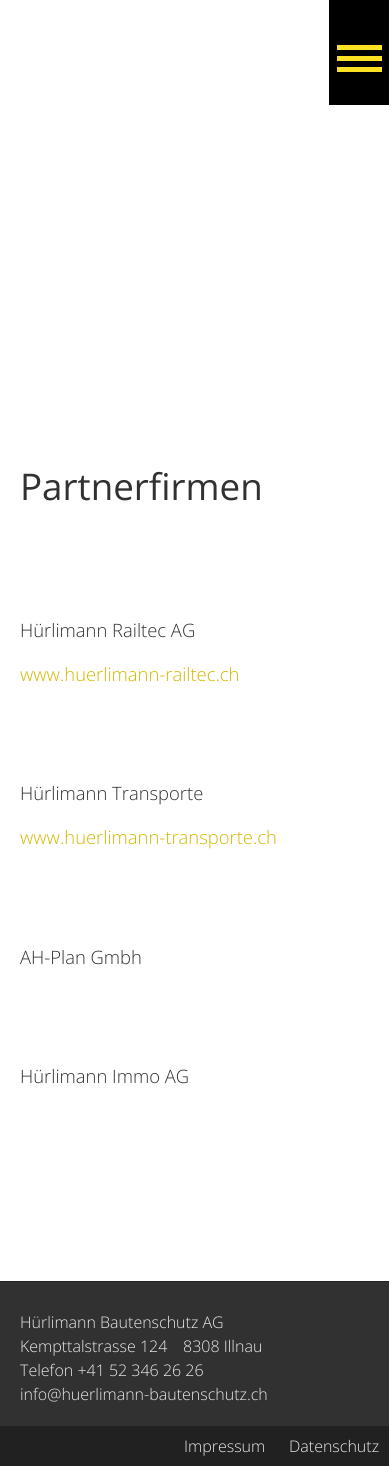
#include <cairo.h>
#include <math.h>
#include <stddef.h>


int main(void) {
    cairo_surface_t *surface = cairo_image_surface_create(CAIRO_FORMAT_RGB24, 389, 1466);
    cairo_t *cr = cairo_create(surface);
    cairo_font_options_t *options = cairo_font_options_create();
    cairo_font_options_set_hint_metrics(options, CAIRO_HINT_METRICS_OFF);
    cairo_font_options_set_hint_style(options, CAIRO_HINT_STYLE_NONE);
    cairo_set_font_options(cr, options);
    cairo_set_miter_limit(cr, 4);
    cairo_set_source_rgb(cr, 1, 1, 1);
    cairo_paint(cr);
    cairo_set_source_rgb(cr, 0, 0, 0);
    cairo_rectangle(cr, 329, 0, 60, 105);
    cairo_fill(cr);
    cairo_set_source_rgb(cr, 0.996, 0.882, 0.133);
    cairo_rectangle(cr, 337, 56, 45, 5);
    cairo_fill(cr);
    cairo_rectangle(cr, 337, 45, 45, 5);
    cairo_fill(cr);
    cairo_rectangle(cr, 337, 67, 45, 5);
    cairo_fill(cr);
    cairo_select_font_face(cr, "Open Sans", CAIRO_FONT_SLANT_NORMAL, CAIRO_FONT_WEIGHT_NORMAL);
    cairo_set_font_size(cr, 36.75);
    cairo_set_source_rgb(cr, 0.192, 0.192, 0.192);
    cairo_move_to(cr, 20, 500);
    cairo_show_text(cr, "Partnerfirmen");
    cairo_select_font_face(cr, "Open Sans Light", CAIRO_FONT_SLANT_NORMAL, CAIRO_FONT_WEIGHT_NORMAL);
    cairo_set_font_size(cr, 18.4);
    cairo_move_to(cr, 20, 637);
    cairo_show_text(cr, "Hürlimann Railtec AG");
    cairo_set_source_rgb(cr, 0.827, 0.718, 0.004);
    cairo_move_to(cr, 20, 681);
    cairo_show_text(cr, "www.huerlimann-railtec.ch");
    cairo_set_source_rgb(cr, 0.192, 0.192, 0.192);
    cairo_move_to(cr, 20, 800);
    cairo_show_text(cr, "Hürlimann Transporte");
    cairo_set_source_rgb(cr, 0.827, 0.718, 0.004);
    cairo_move_to(cr, 20, 844);
    cairo_show_text(cr, "www.huerlimann-transporte.ch");
    cairo_set_source_rgb(cr, 0.192, 0.192, 0.192);
    cairo_move_to(cr, 20, 964);
    cairo_show_text(cr, "AH-Plan Gmbh");
    cairo_move_to(cr, 20, 1083);
    cairo_show_text(cr, "Hürlimann Immo AG");
    cairo_set_source_rgb(cr, 0.129, 0.129, 0.129);
    cairo_rectangle(cr, 0, 1281, 389, 1);
    cairo_fill(cr);
    cairo_set_source_rgb(cr, 0.192, 0.192, 0.192);
    cairo_rectangle(cr, 0, 1282, 389, 144);
    cairo_fill(cr);
    cairo_set_font_size(cr, 16);
    cairo_set_source_rgb(cr, 0.914, 0.914, 0.914);
    cairo_move_to(cr, 20, 1328);
    cairo_show_text(cr, "Hürlimann Bautenschutz AG");
    cairo_move_to(cr, 20, 1352);
    cairo_show_text(cr, "Kempttalstrasse 124");
    cairo_move_to(cr, 183, 1352);
    cairo_show_text(cr, "8308 Illnau");
    cairo_move_to(cr, 20, 1376);
    cairo_show_text(cr, "Telefon +41 52 346 26 26");
    cairo_move_to(cr, 20, 1400);
    cairo_show_text(cr, "info@huerlimann-bautenschutz.ch");
    cairo_set_source_rgb(cr, 0.129, 0.129, 0.129);
    cairo_rectangle(cr, 0, 1426, 389, 40);
    cairo_fill(cr);
    cairo_set_source_rgb(cr, 0.914, 0.914, 0.914);
    cairo_move_to(cr, 184, 1452);
    cairo_show_text(cr, "Impressum");
    cairo_move_to(cr, 289, 1452);
    cairo_show_text(cr, "Datenschutz");
    cairo_surface_write_to_png(surface, "page.png");
    cairo_font_options_destroy(options);
    cairo_destroy(cr);
    cairo_surface_destroy(surface);
    return 0;
}
